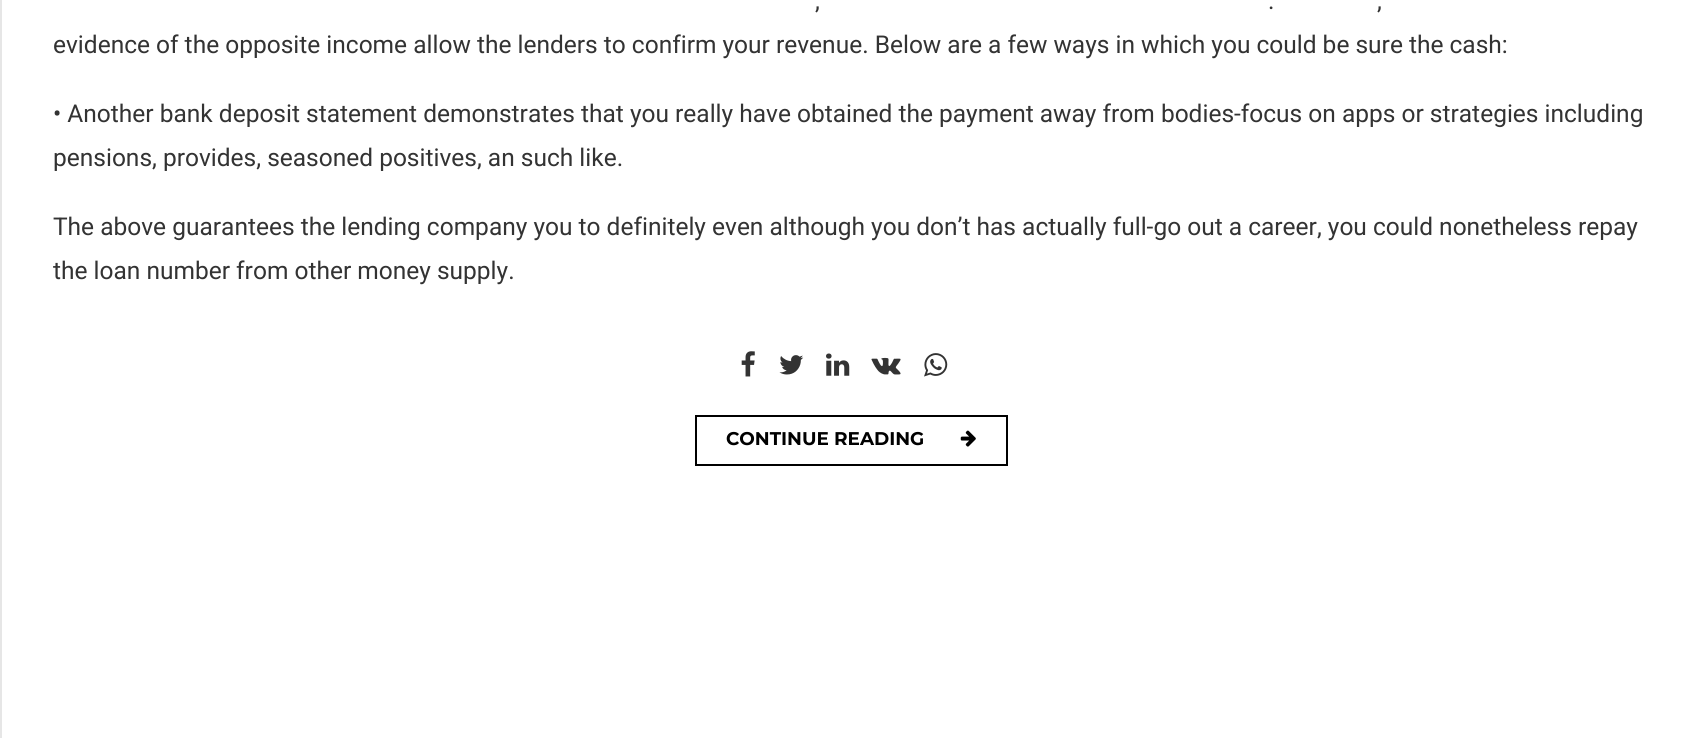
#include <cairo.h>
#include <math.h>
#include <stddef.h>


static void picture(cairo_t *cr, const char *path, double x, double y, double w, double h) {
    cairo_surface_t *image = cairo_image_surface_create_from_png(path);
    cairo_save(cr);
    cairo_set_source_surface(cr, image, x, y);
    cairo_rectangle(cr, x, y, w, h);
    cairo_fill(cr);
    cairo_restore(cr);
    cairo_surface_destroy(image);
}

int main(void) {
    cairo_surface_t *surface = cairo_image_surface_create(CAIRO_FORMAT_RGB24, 1702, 738);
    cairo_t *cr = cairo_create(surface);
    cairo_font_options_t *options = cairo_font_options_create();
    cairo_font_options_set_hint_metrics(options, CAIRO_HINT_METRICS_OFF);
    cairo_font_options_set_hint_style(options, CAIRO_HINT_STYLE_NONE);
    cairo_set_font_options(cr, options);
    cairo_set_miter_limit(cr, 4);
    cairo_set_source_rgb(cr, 1, 1, 1);
    cairo_paint(cr);
    cairo_set_source_rgb(cr, 0.902, 0.902, 0.902);
    cairo_new_path(cr);
    cairo_move_to(cr, -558, 738);
    cairo_line_to(cr, -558, 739);
    cairo_line_to(cr, 2, 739);
    cairo_line_to(cr, 2, 0);
    cairo_line_to(cr, 0, 0);
    cairo_line_to(cr, 0, 738);
    cairo_close_path(cr);
    cairo_fill(cr);
    cairo_select_font_face(cr, "Roboto", CAIRO_FONT_SLANT_NORMAL, CAIRO_FONT_WEIGHT_NORMAL);
    cairo_set_font_size(cr, 24.5);
    cairo_set_source_rgb(cr, 0.2, 0.2, 0.2);
    cairo_move_to(cr, 815, 9);
    cairo_show_text(cr, ",");
    cairo_move_to(cr, 1268, 9);
    cairo_show_text(cr, ".");
    cairo_move_to(cr, 1377, 9);
    cairo_show_text(cr, ",");
    cairo_move_to(cr, 53, 53);
    cairo_show_text(cr, "evidence of the opposite income allow the lenders to confirm your revenue. Below are a few ways in which you could be sure the cash:");
    cairo_move_to(cr, 53, 122);
    cairo_show_text(cr, "• Another bank deposit statement demonstrates that you really have obtained the payment away from bodies-focus on apps or strategies including");
    cairo_move_to(cr, 53, 166);
    cairo_show_text(cr, "pensions, provides, seasoned positives, an such like.");
    cairo_move_to(cr, 53, 235);
    cairo_show_text(cr, "The above guarantees the lending company you to definitely even although you don’t has actually full-go out a career, you could nonetheless repay");
    cairo_move_to(cr, 53, 279);
    cairo_show_text(cr, "the loan number from other money supply.");
    picture(cr, "img1.png", 741, 351, 14, 26);
    picture(cr, "img2.png", 779, 355, 25, 20);
    picture(cr, "img3.png", 826, 353, 24, 23);
    picture(cr, "img4.png", 871, 357, 30, 18);
    picture(cr, "img5.png", 924, 353, 24, 24);
    cairo_rectangle(cr, 696, 416, 311, 49);
    cairo_set_source_rgb(cr, 0, 0, 0);
    cairo_stroke(cr);
    cairo_select_font_face(cr, "Montserrat", CAIRO_FONT_SLANT_NORMAL, CAIRO_FONT_WEIGHT_BOLD);
    cairo_set_font_size(cr, 18.4);
    cairo_move_to(cr, 726, 445);
    cairo_show_text(cr, "CONTINUE READING");
    picture(cr, "img6.png", 960, 430, 16, 17);
    cairo_surface_write_to_png(surface, "page.png");
    cairo_font_options_destroy(options);
    cairo_destroy(cr);
    cairo_surface_destroy(surface);
    return 0;
}
